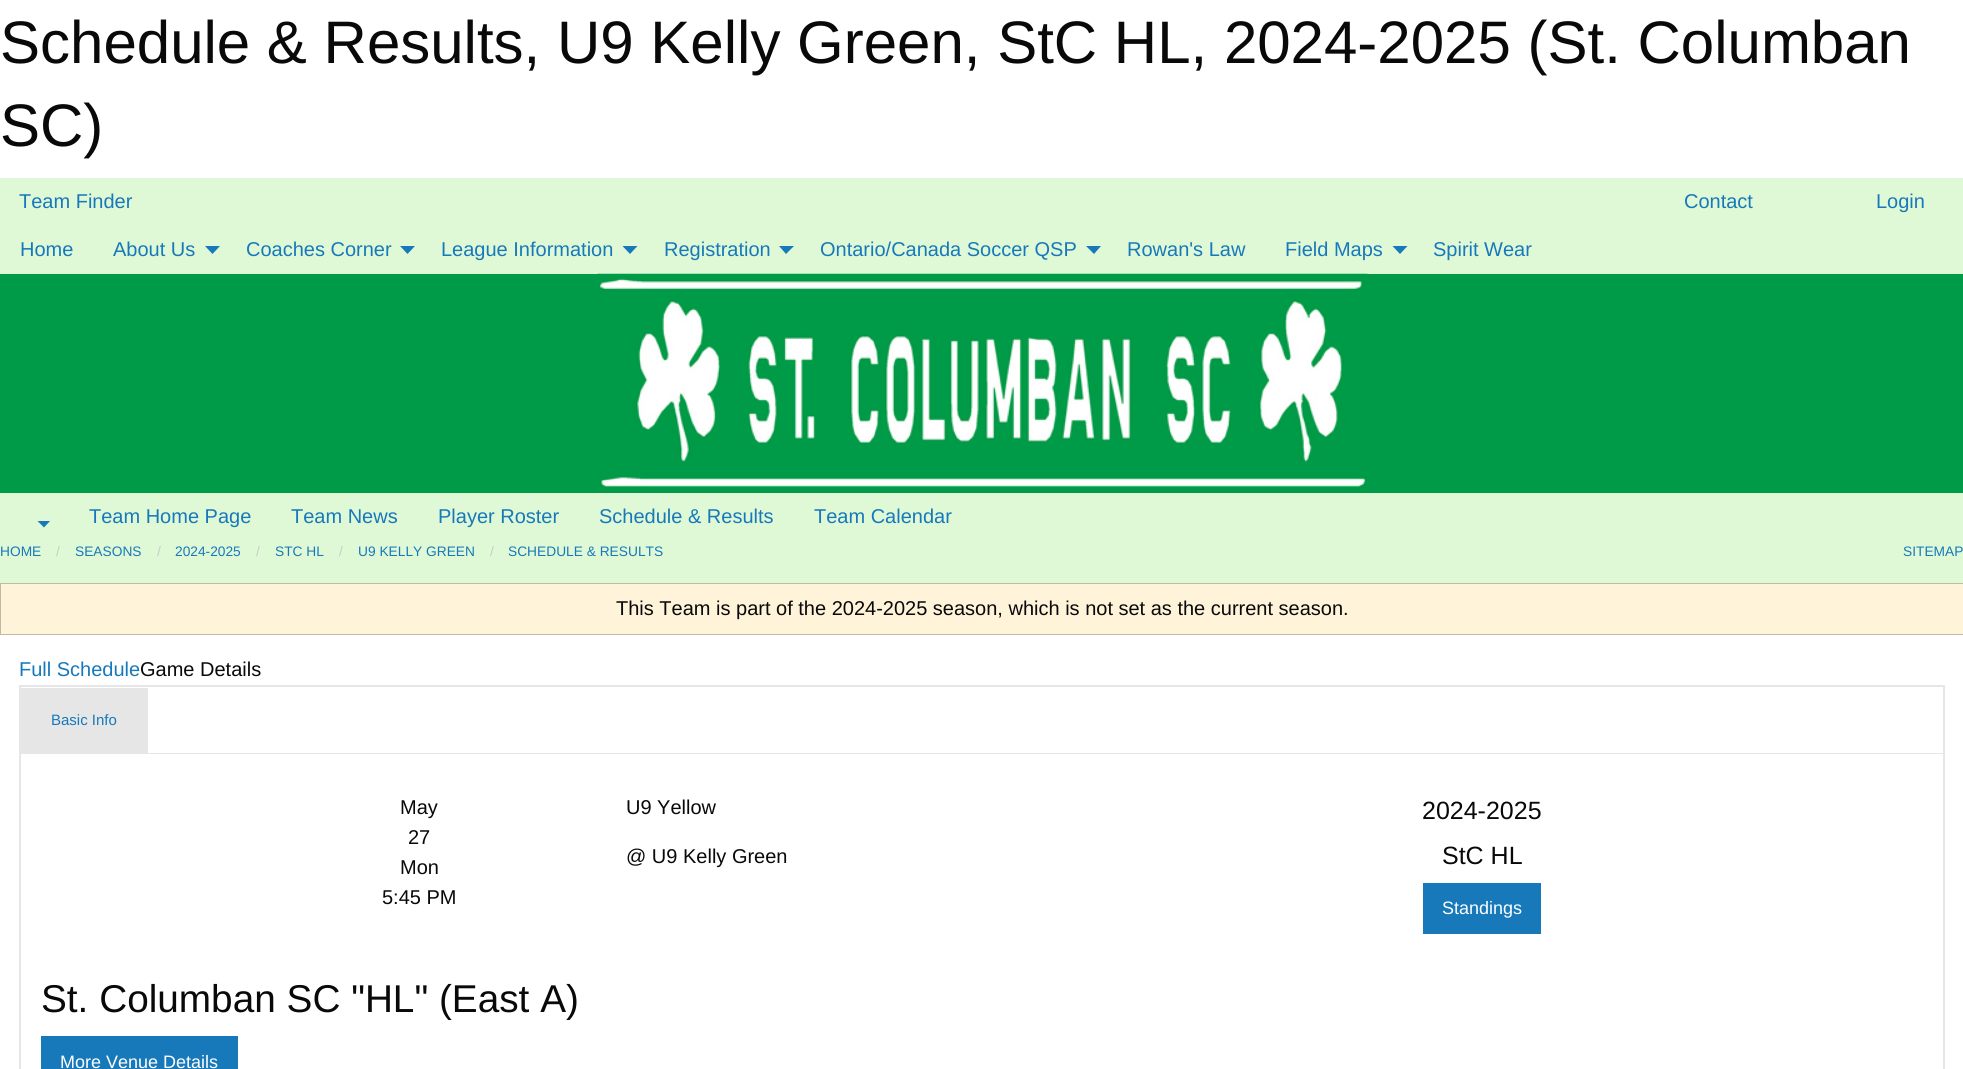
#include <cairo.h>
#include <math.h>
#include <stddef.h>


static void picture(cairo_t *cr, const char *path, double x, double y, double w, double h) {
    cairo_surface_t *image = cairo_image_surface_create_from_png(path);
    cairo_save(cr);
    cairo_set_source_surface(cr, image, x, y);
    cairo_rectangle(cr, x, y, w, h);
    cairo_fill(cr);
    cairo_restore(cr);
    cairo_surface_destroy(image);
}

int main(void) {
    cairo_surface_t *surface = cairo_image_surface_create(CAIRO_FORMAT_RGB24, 1963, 1069);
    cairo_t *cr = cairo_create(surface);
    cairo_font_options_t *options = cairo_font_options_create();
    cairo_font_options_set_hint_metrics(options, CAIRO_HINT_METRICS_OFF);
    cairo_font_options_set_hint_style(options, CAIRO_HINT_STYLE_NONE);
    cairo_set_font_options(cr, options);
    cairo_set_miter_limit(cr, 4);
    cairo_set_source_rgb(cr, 1, 1, 1);
    cairo_paint(cr);
    cairo_select_font_face(cr, "Liberation Sans", CAIRO_FONT_SLANT_NORMAL, CAIRO_FONT_WEIGHT_NORMAL);
    cairo_set_font_size(cr, 60);
    cairo_set_source_rgb(cr, 0.039, 0.039, 0.039);
    cairo_move_to(cr, 0, 63);
    cairo_show_text(cr, "Schedule & Results, U9 Kelly Green, StC HL, 2024-2025 (St. Columban");
    cairo_move_to(cr, 0, 146);
    cairo_show_text(cr, "SC)");
    cairo_set_source_rgb(cr, 0.875, 0.969, 0.839);
    cairo_rectangle(cr, 0, 178, 1963, 405);
    cairo_fill(cr);
    cairo_set_font_size(cr, 20);
    cairo_set_source_rgb(cr, 0.09, 0.475, 0.729);
    cairo_move_to(cr, 19, 208);
    cairo_show_text(cr, "Team Finder");
    cairo_move_to(cr, 1684, 208);
    cairo_show_text(cr, "Contact");
    cairo_move_to(cr, 1876, 208);
    cairo_show_text(cr, "Login");
    cairo_move_to(cr, 20, 256);
    cairo_show_text(cr, "Home");
    cairo_move_to(cr, 113, 256);
    cairo_show_text(cr, "About Us");
    cairo_new_path(cr);
    cairo_move_to(cr, 205, 246);
    cairo_line_to(cr, 220, 246);
    cairo_line_to(cr, 212.5, 254);
    cairo_close_path(cr);
    cairo_fill(cr);
    cairo_move_to(cr, 246, 256);
    cairo_show_text(cr, "Coaches Corner");
    cairo_new_path(cr);
    cairo_move_to(cr, 400, 246);
    cairo_line_to(cr, 415, 246);
    cairo_line_to(cr, 407.5, 254);
    cairo_close_path(cr);
    cairo_fill(cr);
    cairo_move_to(cr, 441, 256);
    cairo_show_text(cr, "League Information");
    cairo_new_path(cr);
    cairo_move_to(cr, 622.5, 246);
    cairo_line_to(cr, 637.5, 246);
    cairo_line_to(cr, 630, 254);
    cairo_close_path(cr);
    cairo_fill(cr);
    cairo_move_to(cr, 664, 256);
    cairo_show_text(cr, "Registration");
    cairo_new_path(cr);
    cairo_move_to(cr, 779, 246);
    cairo_line_to(cr, 794, 246);
    cairo_line_to(cr, 786, 254);
    cairo_close_path(cr);
    cairo_fill(cr);
    cairo_move_to(cr, 820, 256);
    cairo_show_text(cr, "Ontario/Canada Soccer QSP");
    cairo_new_path(cr);
    cairo_move_to(cr, 1086, 246);
    cairo_line_to(cr, 1101, 246);
    cairo_line_to(cr, 1094, 254);
    cairo_close_path(cr);
    cairo_fill(cr);
    cairo_move_to(cr, 1127, 256);
    cairo_show_text(cr, "Rowan's Law");
    cairo_move_to(cr, 1285, 256);
    cairo_show_text(cr, "Field Maps");
    cairo_new_path(cr);
    cairo_move_to(cr, 1392.5, 246);
    cairo_line_to(cr, 1407.5, 246);
    cairo_line_to(cr, 1400, 254);
    cairo_close_path(cr);
    cairo_fill(cr);
    cairo_move_to(cr, 1433, 256);
    cairo_show_text(cr, "Spirit Wear");
    cairo_set_source_rgb(cr, 0, 0.608, 0.282);
    cairo_rectangle(cr, 0, 274, 1963, 219);
    cairo_fill(cr);
    picture(cr, "img1.png", 597, 273, 771, 215);
    cairo_set_source_rgb(cr, 0.09, 0.475, 0.729);
    cairo_new_path(cr);
    cairo_move_to(cr, 37.5, 521);
    cairo_line_to(cr, 50, 521);
    cairo_line_to(cr, 44, 527.5);
    cairo_close_path(cr);
    cairo_fill(cr);
    cairo_move_to(cr, 89, 523);
    cairo_show_text(cr, "Team Home Page");
    cairo_move_to(cr, 291, 523);
    cairo_show_text(cr, "Team News");
    cairo_move_to(cr, 438, 523);
    cairo_show_text(cr, "Player Roster");
    cairo_move_to(cr, 599, 523);
    cairo_show_text(cr, "Schedule & Results");
    cairo_move_to(cr, 814, 523);
    cairo_show_text(cr, "Team Calendar");
    cairo_set_font_size(cr, 13.75);
    cairo_move_to(cr, 0, 556);
    cairo_show_text(cr, "HOME");
    cairo_set_source_rgb(cr, 0.792, 0.792, 0.792);
    cairo_move_to(cr, 56, 556);
    cairo_show_text(cr, "/");
    cairo_set_source_rgb(cr, 0.09, 0.475, 0.729);
    cairo_move_to(cr, 75, 556);
    cairo_show_text(cr, "SEASONS");
    cairo_set_source_rgb(cr, 0.792, 0.792, 0.792);
    cairo_move_to(cr, 157, 556);
    cairo_show_text(cr, "/");
    cairo_set_source_rgb(cr, 0.09, 0.475, 0.729);
    cairo_move_to(cr, 175, 556);
    cairo_show_text(cr, "2024-2025");
    cairo_set_source_rgb(cr, 0.792, 0.792, 0.792);
    cairo_move_to(cr, 256, 556);
    cairo_show_text(cr, "/");
    cairo_set_source_rgb(cr, 0.09, 0.475, 0.729);
    cairo_move_to(cr, 275, 556);
    cairo_show_text(cr, "STC HL");
    cairo_set_source_rgb(cr, 0.792, 0.792, 0.792);
    cairo_move_to(cr, 339, 556);
    cairo_show_text(cr, "/");
    cairo_set_source_rgb(cr, 0.09, 0.475, 0.729);
    cairo_move_to(cr, 358, 556);
    cairo_show_text(cr, "U9 KELLY GREEN");
    cairo_set_source_rgb(cr, 0.792, 0.792, 0.792);
    cairo_move_to(cr, 490, 556);
    cairo_show_text(cr, "/");
    cairo_set_source_rgb(cr, 0.09, 0.475, 0.729);
    cairo_move_to(cr, 508, 556);
    cairo_show_text(cr, "SCHEDULE & RESULTS");
    cairo_move_to(cr, 1903, 556);
    cairo_show_text(cr, "SITEMAP");
    cairo_set_source_rgb(cr, 1, 0.953, 0.851);
    cairo_rectangle(cr, 0.5, 583.5, 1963, 51);
    cairo_fill_preserve(cr);
    cairo_set_source_rgb(cr, 0.761, 0.725, 0.647);
    cairo_set_line_width(cr, 1);
    cairo_stroke(cr);
    cairo_set_font_size(cr, 20);
    cairo_set_source_rgb(cr, 0.039, 0.039, 0.039);
    cairo_move_to(cr, 616, 615);
    cairo_show_text(cr, "This Team is part of the 2024-2025 season, which is not set as the current season.");
    cairo_set_source_rgb(cr, 0.09, 0.475, 0.729);
    cairo_move_to(cr, 19, 676);
    cairo_show_text(cr, "Full Schedule");
    cairo_set_source_rgb(cr, 0.039, 0.039, 0.039);
    cairo_move_to(cr, 140, 676);
    cairo_show_text(cr, "Game Details");
    cairo_rectangle(cr, 19.5, 685.5, 1925, 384);
    cairo_set_source_rgb(cr, 0.902, 0.902, 0.902);
    cairo_stroke(cr);
    cairo_rectangle(cr, 20.5, 686.5, 1923, 67);
    cairo_stroke(cr);
    cairo_rectangle(cr, 21, 688, 127, 65);
    cairo_fill(cr);
    cairo_set_font_size(cr, 15);
    cairo_set_source_rgb(cr, 0.09, 0.475, 0.729);
    cairo_move_to(cr, 51, 725);
    cairo_show_text(cr, "Basic Info");
    cairo_set_source_rgb(cr, 0.902, 0.902, 0.902);
    cairo_rectangle(cr, 1943, 754, 1, 315);
    cairo_fill(cr);
    cairo_rectangle(cr, 20, 754, 1, 315);
    cairo_fill(cr);
    cairo_set_font_size(cr, 20);
    cairo_set_source_rgb(cr, 0.039, 0.039, 0.039);
    cairo_move_to(cr, 400, 814);
    cairo_show_text(cr, "May");
    cairo_move_to(cr, 408, 844);
    cairo_show_text(cr, "27");
    cairo_move_to(cr, 400, 874);
    cairo_show_text(cr, "Mon");
    cairo_move_to(cr, 382, 904);
    cairo_show_text(cr, "5:45 PM");
    cairo_move_to(cr, 626, 814);
    cairo_show_text(cr, "U9 Yellow");
    cairo_move_to(cr, 626, 863);
    cairo_show_text(cr, "@ U9 Kelly Green");
    cairo_set_font_size(cr, 25);
    cairo_move_to(cr, 1422, 819);
    cairo_show_text(cr, "2024-2025");
    cairo_move_to(cr, 1442, 864);
    cairo_show_text(cr, "StC HL");
    cairo_set_source_rgb(cr, 0.09, 0.475, 0.729);
    cairo_rectangle(cr, 1423, 883, 118, 51);
    cairo_fill(cr);
    cairo_set_font_size(cr, 18);
    cairo_set_source_rgb(cr, 0.996, 0.996, 0.996);
    cairo_move_to(cr, 1442, 914);
    cairo_show_text(cr, "Standings");
    cairo_set_font_size(cr, 38.75);
    cairo_set_source_rgb(cr, 0.039, 0.039, 0.039);
    cairo_move_to(cr, 41, 1012);
    cairo_show_text(cr, "St. Columban SC \"HL\" (East A)");
    cairo_set_source_rgb(cr, 0.09, 0.475, 0.729);
    cairo_rectangle(cr, 41, 1036, 197, 33);
    cairo_fill(cr);
    cairo_set_font_size(cr, 18);
    cairo_set_source_rgb(cr, 0.996, 0.996, 0.996);
    cairo_move_to(cr, 60, 1068);
    cairo_show_text(cr, "More Venue Details");
    cairo_surface_write_to_png(surface, "page.png");
    cairo_font_options_destroy(options);
    cairo_destroy(cr);
    cairo_surface_destroy(surface);
    return 0;
}
